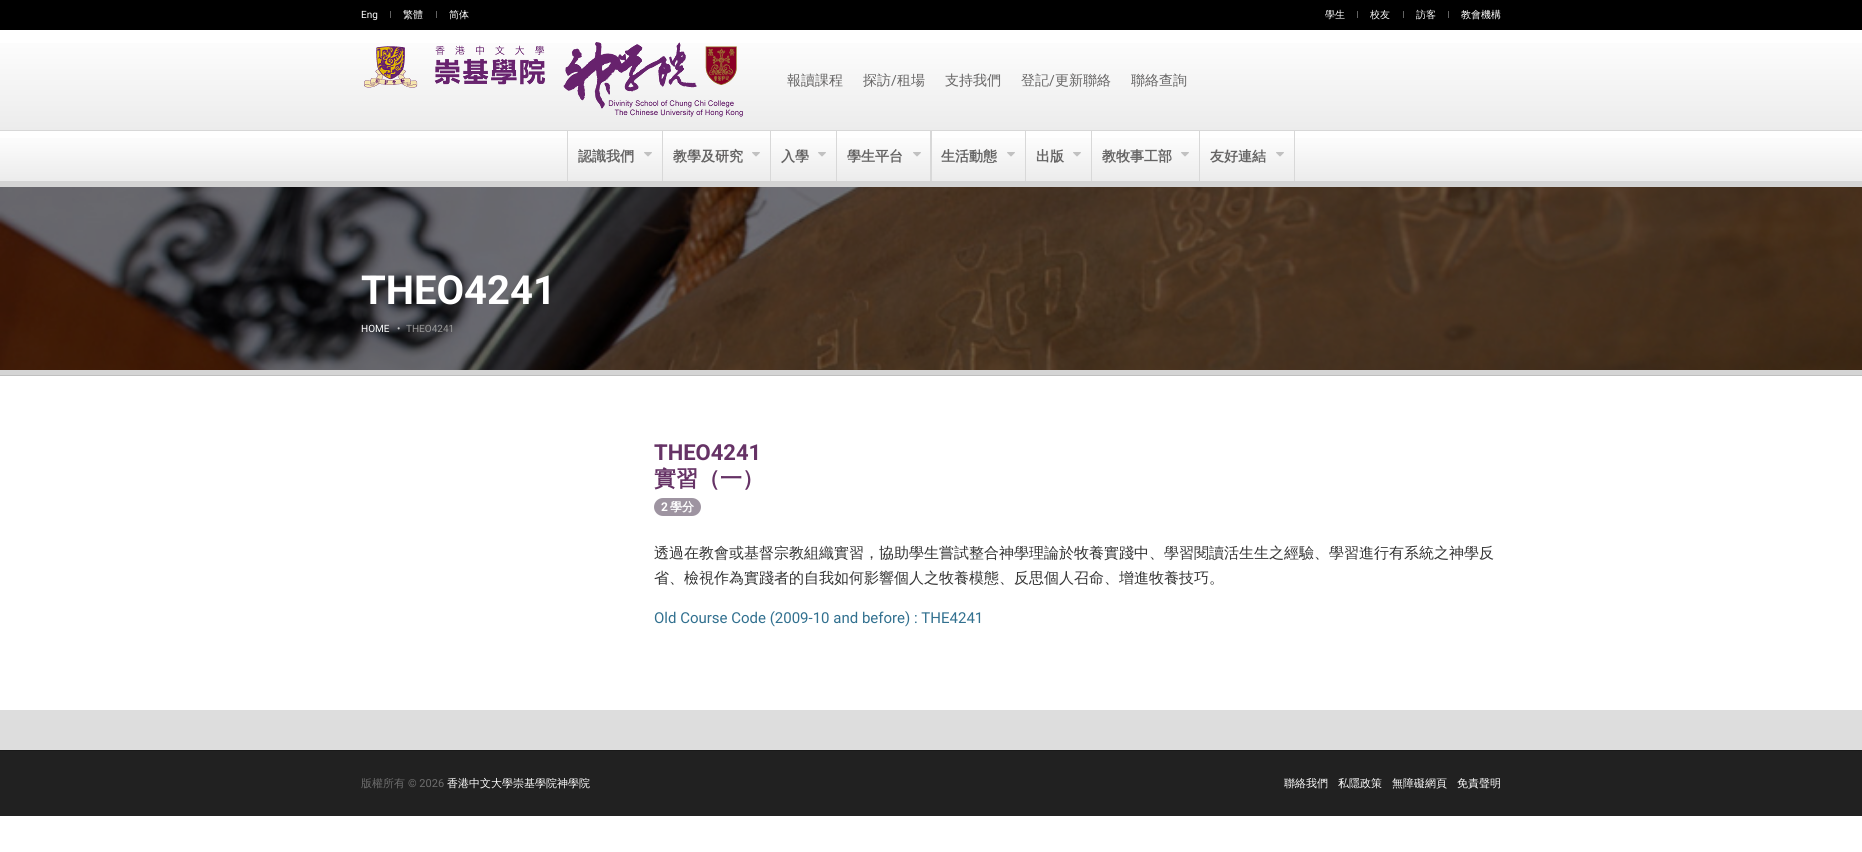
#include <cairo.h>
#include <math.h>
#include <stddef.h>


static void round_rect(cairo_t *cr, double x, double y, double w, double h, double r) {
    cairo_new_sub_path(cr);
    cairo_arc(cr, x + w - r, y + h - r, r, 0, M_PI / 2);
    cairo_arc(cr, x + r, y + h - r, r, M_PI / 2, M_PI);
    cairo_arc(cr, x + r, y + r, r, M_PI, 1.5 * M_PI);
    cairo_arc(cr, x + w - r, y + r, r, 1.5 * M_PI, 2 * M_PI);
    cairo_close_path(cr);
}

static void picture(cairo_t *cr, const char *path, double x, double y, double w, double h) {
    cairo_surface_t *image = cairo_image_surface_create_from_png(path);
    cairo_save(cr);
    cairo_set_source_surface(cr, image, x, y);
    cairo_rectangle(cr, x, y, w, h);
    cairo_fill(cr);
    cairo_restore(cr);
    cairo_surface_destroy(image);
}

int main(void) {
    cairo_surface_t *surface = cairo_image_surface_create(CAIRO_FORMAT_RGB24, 1862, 852);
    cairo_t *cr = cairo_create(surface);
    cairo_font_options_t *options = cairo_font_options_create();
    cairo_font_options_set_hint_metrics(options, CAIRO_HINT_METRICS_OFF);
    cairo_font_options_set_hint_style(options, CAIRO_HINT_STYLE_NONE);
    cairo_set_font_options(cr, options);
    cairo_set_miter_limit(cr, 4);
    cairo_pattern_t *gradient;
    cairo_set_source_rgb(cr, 1, 1, 1);
    cairo_paint(cr);
    cairo_set_source_rgb(cr, 0, 0, 0);
    cairo_rectangle(cr, 0, 0, 1862, 30);
    cairo_fill(cr);
    cairo_select_font_face(cr, "Roboto", CAIRO_FONT_SLANT_NORMAL, CAIRO_FONT_WEIGHT_NORMAL);
    cairo_set_font_size(cr, 10);
    cairo_set_source_rgb(cr, 1, 1, 1);
    cairo_move_to(cr, 361, 18);
    cairo_show_text(cr, "Eng");
    cairo_set_source_rgb(cr, 0.38, 0.38, 0.38);
    cairo_rectangle(cr, 390, 11, 1, 7);
    cairo_fill(cr);
    cairo_select_font_face(cr, "WenQuanYi Zen Hei Medium", CAIRO_FONT_SLANT_NORMAL, CAIRO_FONT_WEIGHT_NORMAL);
    cairo_set_source_rgb(cr, 1, 1, 1);
    cairo_move_to(cr, 403, 18);
    cairo_show_text(cr, "繁體");
    cairo_set_source_rgb(cr, 0.38, 0.38, 0.38);
    cairo_rectangle(cr, 436, 11, 1, 7);
    cairo_fill(cr);
    cairo_set_source_rgb(cr, 1, 1, 1);
    cairo_move_to(cr, 449, 18);
    cairo_show_text(cr, "简体");
    cairo_move_to(cr, 1325, 18);
    cairo_show_text(cr, "學生");
    cairo_set_source_rgb(cr, 0.38, 0.38, 0.38);
    cairo_rectangle(cr, 1357, 11, 1, 7);
    cairo_fill(cr);
    cairo_set_source_rgb(cr, 1, 1, 1);
    cairo_move_to(cr, 1370, 18);
    cairo_show_text(cr, "校友");
    cairo_set_source_rgb(cr, 0.38, 0.38, 0.38);
    cairo_rectangle(cr, 1403, 11, 1, 7);
    cairo_fill(cr);
    cairo_set_source_rgb(cr, 1, 1, 1);
    cairo_move_to(cr, 1416, 18);
    cairo_show_text(cr, "訪客");
    cairo_set_source_rgb(cr, 0.38, 0.38, 0.38);
    cairo_rectangle(cr, 1448, 11, 1, 7);
    cairo_fill(cr);
    cairo_set_source_rgb(cr, 1, 1, 1);
    cairo_move_to(cr, 1461, 18);
    cairo_show_text(cr, "教會機構");
    gradient = cairo_pattern_create_linear(931, 30, 931, 130);
    cairo_pattern_add_color_stop_rgba(gradient, 0, 1, 1, 1, 1);
    cairo_pattern_add_color_stop_rgba(gradient, 1, 0.925, 0.925, 0.925, 1);
    cairo_set_source(cr, gradient);
    cairo_pattern_destroy(gradient);
    cairo_rectangle(cr, 0, 43, 1862, 87);
    cairo_fill(cr);
    picture(cr, "img1.png", 364, 46, 54, 42);
    picture(cr, "img2.png", 434, 42, 309, 75);
    cairo_set_font_size(cr, 14);
    cairo_set_source_rgb(cr, 0.396, 0.392, 0.392);
    cairo_move_to(cr, 787, 85);
    cairo_show_text(cr, "報讀課程");
    cairo_move_to(cr, 863, 85);
    cairo_show_text(cr, "探訪");
    cairo_select_font_face(cr, "Roboto", CAIRO_FONT_SLANT_NORMAL, CAIRO_FONT_WEIGHT_NORMAL);
    cairo_move_to(cr, 891, 85);
    cairo_show_text(cr, "/");
    cairo_select_font_face(cr, "WenQuanYi Zen Hei Medium", CAIRO_FONT_SLANT_NORMAL, CAIRO_FONT_WEIGHT_NORMAL);
    cairo_move_to(cr, 897, 85);
    cairo_show_text(cr, "租場");
    cairo_move_to(cr, 945, 85);
    cairo_show_text(cr, "支持我們");
    cairo_move_to(cr, 1021, 85);
    cairo_show_text(cr, "登記");
    cairo_select_font_face(cr, "Roboto", CAIRO_FONT_SLANT_NORMAL, CAIRO_FONT_WEIGHT_NORMAL);
    cairo_move_to(cr, 1049, 85);
    cairo_show_text(cr, "/");
    cairo_select_font_face(cr, "WenQuanYi Zen Hei Medium", CAIRO_FONT_SLANT_NORMAL, CAIRO_FONT_WEIGHT_NORMAL);
    cairo_move_to(cr, 1055, 85);
    cairo_show_text(cr, "更新聯絡");
    cairo_move_to(cr, 1131, 85);
    cairo_show_text(cr, "聯絡查詢");
    gradient = cairo_pattern_create_linear(931, 131, 931, 181);
    cairo_pattern_add_color_stop_rgba(gradient, 0, 1, 1, 1, 1);
    cairo_pattern_add_color_stop_rgba(gradient, 1, 0.925, 0.925, 0.925, 1);
    cairo_set_source(cr, gradient);
    cairo_pattern_destroy(gradient);
    cairo_rectangle(cr, 0, 138, 1862, 43);
    cairo_fill(cr);
    cairo_set_source_rgb(cr, 0.847, 0.847, 0.847);
    cairo_rectangle(cr, 0, 130, 1862, 1);
    cairo_fill(cr);
    cairo_rectangle(cr, 662, 131, 1, 50);
    cairo_fill(cr);
    cairo_rectangle(cr, 567, 131, 1, 50);
    cairo_fill(cr);
    cairo_select_font_face(cr, "WenQuanYi Zen Hei", CAIRO_FONT_SLANT_NORMAL, CAIRO_FONT_WEIGHT_BOLD);
    cairo_set_source_rgb(cr, 0.396, 0.392, 0.392);
    cairo_move_to(cr, 578, 161);
    cairo_show_text(cr, "認識我們");
    picture(cr, "img3.png", 644, 152, 8, 5);
    cairo_set_source_rgb(cr, 0.847, 0.847, 0.847);
    cairo_rectangle(cr, 770, 131, 1, 50);
    cairo_fill(cr);
    cairo_set_source_rgb(cr, 0.396, 0.392, 0.392);
    cairo_move_to(cr, 673, 161);
    cairo_show_text(cr, "教學及研究");
    picture(cr, "img3.png", 752, 152, 8, 5);
    cairo_set_source_rgb(cr, 0.847, 0.847, 0.847);
    cairo_rectangle(cr, 836, 131, 1, 50);
    cairo_fill(cr);
    cairo_set_source_rgb(cr, 0.396, 0.392, 0.392);
    cairo_move_to(cr, 781, 161);
    cairo_show_text(cr, "入學");
    picture(cr, "img3.png", 818, 152, 8, 5);
    cairo_set_source_rgb(cr, 0.847, 0.847, 0.847);
    cairo_rectangle(cr, 930, 131, 2, 50);
    cairo_fill(cr);
    cairo_set_source_rgb(cr, 0.396, 0.392, 0.392);
    cairo_move_to(cr, 847, 161);
    cairo_show_text(cr, "學生平台");
    picture(cr, "img3.png", 913, 152, 8, 5);
    cairo_set_source_rgb(cr, 0.847, 0.847, 0.847);
    cairo_rectangle(cr, 1025, 131, 1, 50);
    cairo_fill(cr);
    cairo_set_source_rgb(cr, 0.396, 0.392, 0.392);
    cairo_move_to(cr, 941, 161);
    cairo_show_text(cr, "生活動態");
    picture(cr, "img3.png", 1007, 152, 8, 5);
    cairo_set_source_rgb(cr, 0.847, 0.847, 0.847);
    cairo_rectangle(cr, 1091, 131, 1, 50);
    cairo_fill(cr);
    cairo_set_source_rgb(cr, 0.396, 0.392, 0.392);
    cairo_move_to(cr, 1036, 161);
    cairo_show_text(cr, "出版");
    picture(cr, "img3.png", 1073, 152, 8, 5);
    cairo_set_source_rgb(cr, 0.847, 0.847, 0.847);
    cairo_rectangle(cr, 1199, 131, 1, 50);
    cairo_fill(cr);
    cairo_set_source_rgb(cr, 0.396, 0.392, 0.392);
    cairo_move_to(cr, 1102, 161);
    cairo_show_text(cr, "教牧事工部");
    picture(cr, "img3.png", 1181, 152, 8, 5);
    cairo_set_source_rgb(cr, 0.847, 0.847, 0.847);
    cairo_rectangle(cr, 1294, 131, 1, 50);
    cairo_fill(cr);
    cairo_set_source_rgb(cr, 0.396, 0.392, 0.392);
    cairo_move_to(cr, 1210, 161);
    cairo_show_text(cr, "友好連結");
    picture(cr, "img3.png", 1276, 152, 8, 5);
    picture(cr, "img4.png", 0, 187, 1862, 183);
    cairo_set_source_rgb(cr, 0.831, 0.831, 0.831);
    cairo_rectangle(cr, 0, 181, 1862, 6);
    cairo_fill(cr);
    cairo_rectangle(cr, 0, 370, 1862, 5);
    cairo_fill(cr);
    cairo_select_font_face(cr, "Roboto", CAIRO_FONT_SLANT_NORMAL, CAIRO_FONT_WEIGHT_BOLD);
    cairo_set_font_size(cr, 40);
    cairo_set_source_rgb(cr, 1, 1, 1);
    cairo_move_to(cr, 361, 304);
    cairo_show_text(cr, "THEO4241");
    cairo_select_font_face(cr, "Roboto", CAIRO_FONT_SLANT_NORMAL, CAIRO_FONT_WEIGHT_NORMAL);
    cairo_set_font_size(cr, 10);
    cairo_move_to(cr, 361, 332);
    cairo_show_text(cr, "HOME");
    cairo_set_source_rgb(cr, 0.8, 0.8, 0.8);
    cairo_move_to(cr, 397, 332);
    cairo_show_text(cr, "•");
    cairo_set_source_rgb(cr, 0.6, 0.6, 0.6);
    cairo_move_to(cr, 406, 332);
    cairo_show_text(cr, "THEO4241");
    cairo_set_source_rgb(cr, 0.749, 0.749, 0.749);
    cairo_rectangle(cr, 0, 375, 1862, 1);
    cairo_fill(cr);
    cairo_select_font_face(cr, "Roboto", CAIRO_FONT_SLANT_NORMAL, CAIRO_FONT_WEIGHT_BOLD);
    cairo_set_font_size(cr, 22);
    cairo_set_source_rgb(cr, 0.4, 0.2, 0.4);
    cairo_move_to(cr, 654, 460);
    cairo_show_text(cr, "THEO4241");
    cairo_select_font_face(cr, "WenQuanYi Zen Hei", CAIRO_FONT_SLANT_NORMAL, CAIRO_FONT_WEIGHT_BOLD);
    cairo_move_to(cr, 654, 486);
    cairo_show_text(cr, "實習（一）");
    cairo_set_source_rgb(cr, 0.62, 0.58, 0.631);
    round_rect(cr, 654, 498, 47, 18, 9);
    cairo_fill(cr);
    cairo_select_font_face(cr, "Roboto", CAIRO_FONT_SLANT_NORMAL, CAIRO_FONT_WEIGHT_BOLD);
    cairo_set_font_size(cr, 12);
    cairo_set_source_rgb(cr, 1, 1, 1);
    cairo_move_to(cr, 661, 511);
    cairo_show_text(cr, "2");
    cairo_select_font_face(cr, "WenQuanYi Zen Hei", CAIRO_FONT_SLANT_NORMAL, CAIRO_FONT_WEIGHT_BOLD);
    cairo_move_to(cr, 670, 511);
    cairo_show_text(cr, "學分");
    cairo_select_font_face(cr, "WenQuanYi Zen Hei Medium", CAIRO_FONT_SLANT_NORMAL, CAIRO_FONT_WEIGHT_NORMAL);
    cairo_set_font_size(cr, 15);
    cairo_set_source_rgb(cr, 0.2, 0.2, 0.2);
    cairo_move_to(cr, 654, 558);
    cairo_show_text(cr, "透過在教會或基督宗教組織實習，協助學生嘗試整合神學理論於牧養實踐中、學習閱讀活生生之經驗、學習進行有系統之神學反");
    cairo_move_to(cr, 654, 583);
    cairo_show_text(cr, "省、檢視作為實踐者的自我如何影響個人之牧養模態、反思個人召命、增進牧養技巧。");
    cairo_select_font_face(cr, "Roboto", CAIRO_FONT_SLANT_NORMAL, CAIRO_FONT_WEIGHT_NORMAL);
    cairo_set_source_rgb(cr, 0.192, 0.439, 0.561);
    cairo_move_to(cr, 654, 623);
    cairo_show_text(cr, "Old Course Code (2009-10 and before) : THE4241");
    cairo_set_source_rgb(cr, 0.867, 0.867, 0.867);
    cairo_rectangle(cr, 0, 710, 1862, 40);
    cairo_fill(cr);
    cairo_set_source_rgb(cr, 0.129, 0.129, 0.129);
    cairo_rectangle(cr, 0, 751, 1862, 65);
    cairo_fill(cr);
    cairo_set_source_rgb(cr, 0.098, 0.098, 0.098);
    cairo_rectangle(cr, 0, 750, 1862, 1);
    cairo_fill(cr);
    cairo_select_font_face(cr, "WenQuanYi Zen Hei Medium", CAIRO_FONT_SLANT_NORMAL, CAIRO_FONT_WEIGHT_NORMAL);
    cairo_set_font_size(cr, 11);
    cairo_set_source_rgb(cr, 0.427, 0.427, 0.427);
    cairo_move_to(cr, 361, 787);
    cairo_show_text(cr, "版權所有");
    cairo_select_font_face(cr, "Roboto", CAIRO_FONT_SLANT_NORMAL, CAIRO_FONT_WEIGHT_NORMAL);
    cairo_move_to(cr, 408, 787);
    cairo_show_text(cr, "© 2026");
    cairo_select_font_face(cr, "WenQuanYi Zen Hei Medium", CAIRO_FONT_SLANT_NORMAL, CAIRO_FONT_WEIGHT_NORMAL);
    cairo_set_source_rgb(cr, 1, 1, 1);
    cairo_move_to(cr, 447, 787);
    cairo_show_text(cr, "香港中文大學崇基學院神學院");
    cairo_move_to(cr, 1284, 787);
    cairo_show_text(cr, "聯絡我們");
    cairo_move_to(cr, 1338, 787);
    cairo_show_text(cr, "私隱政策");
    cairo_move_to(cr, 1392, 787);
    cairo_show_text(cr, "無障礙網頁");
    cairo_move_to(cr, 1457, 787);
    cairo_show_text(cr, "免責聲明");
    cairo_surface_write_to_png(surface, "page.png");
    cairo_font_options_destroy(options);
    cairo_destroy(cr);
    cairo_surface_destroy(surface);
    return 0;
}
